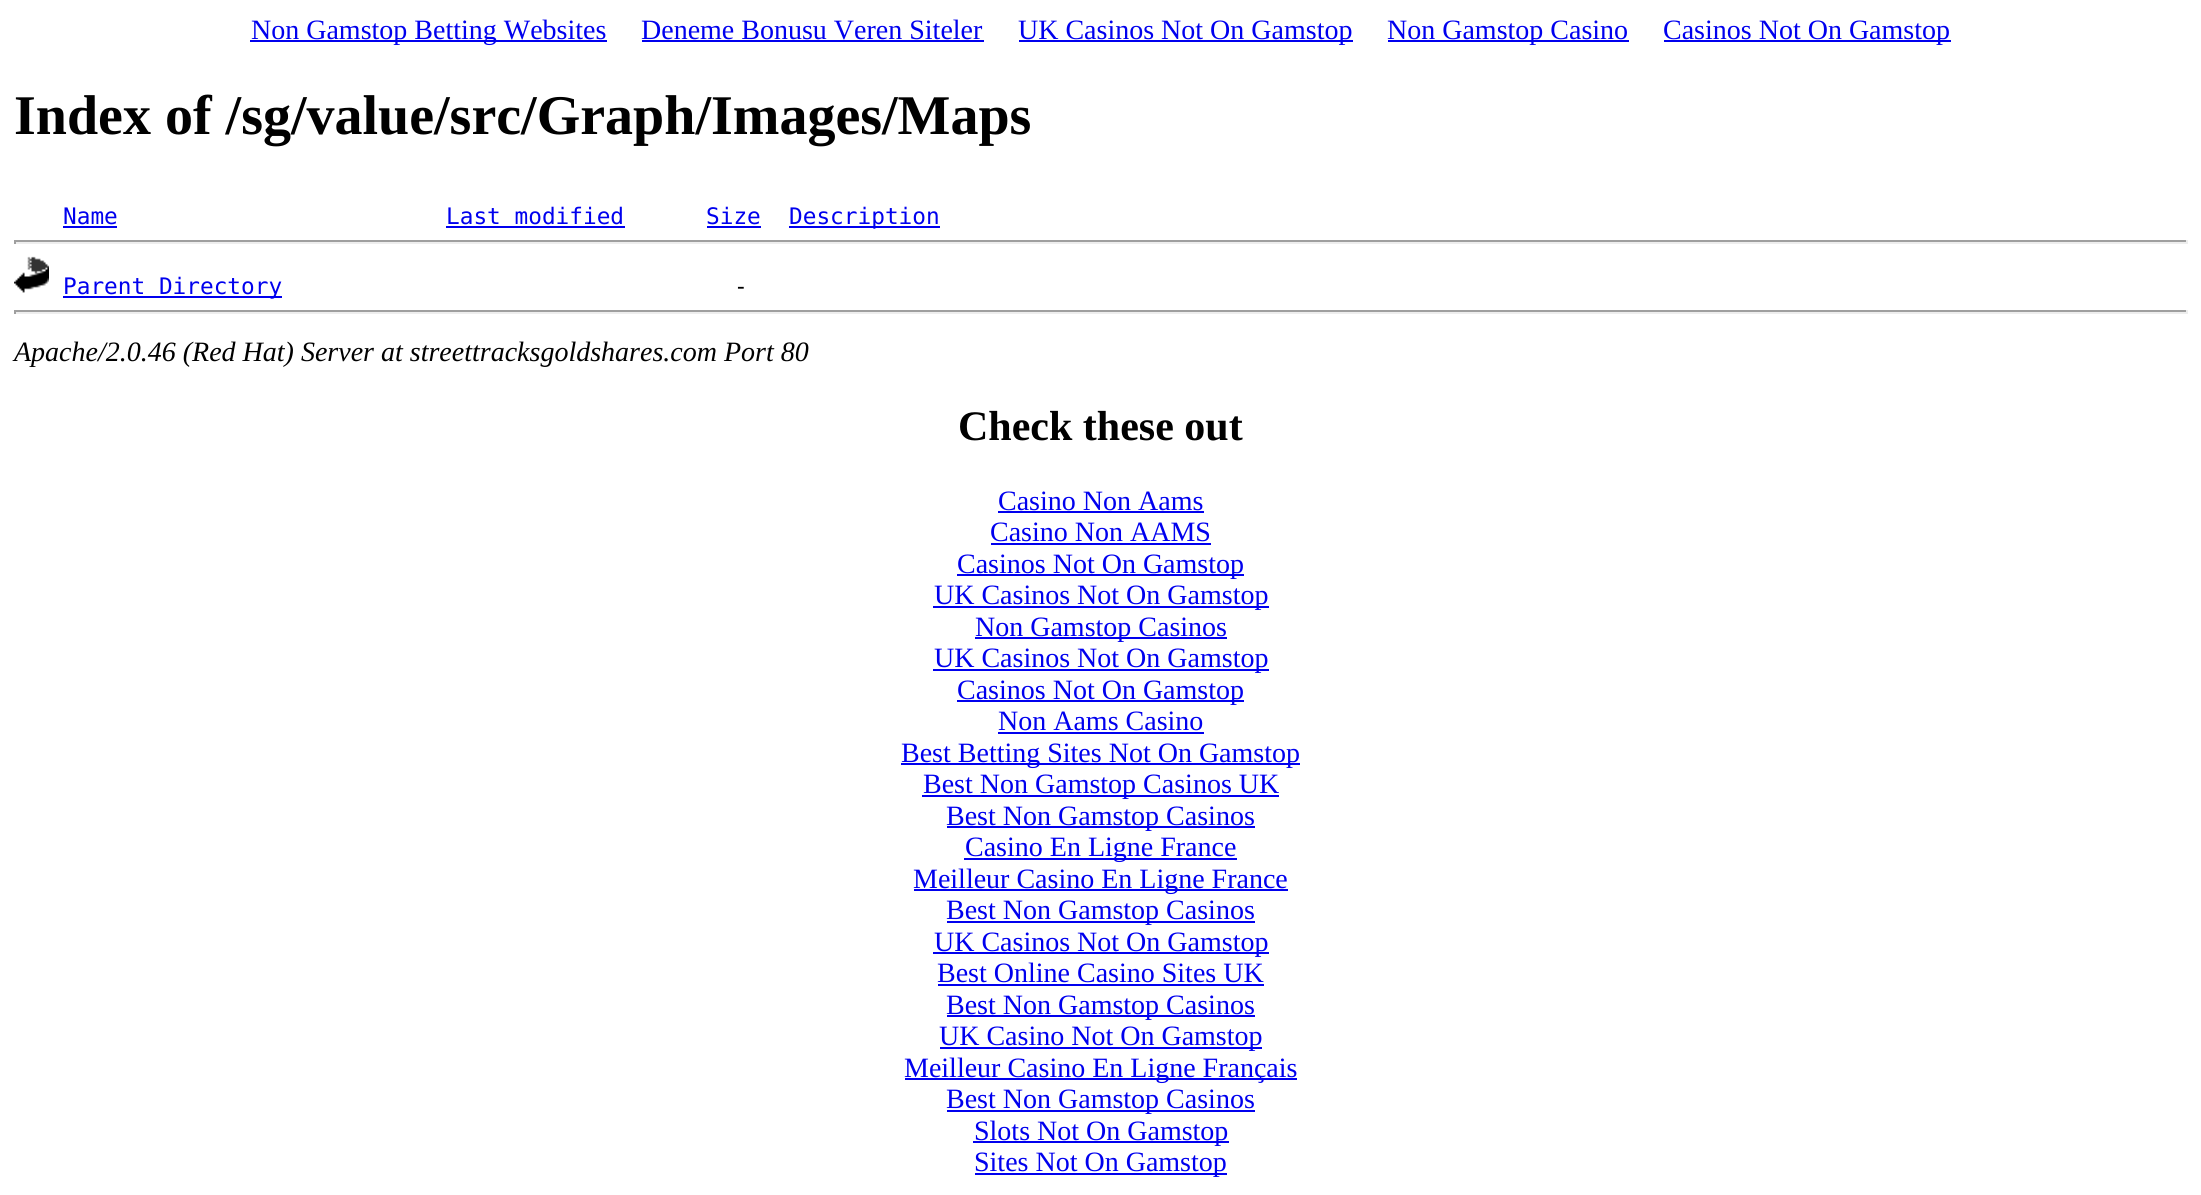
#include <cairo.h>
#include <math.h>
#include <stddef.h>


static void picture(cairo_t *cr, const char *path, double x, double y, double w, double h) {
    cairo_surface_t *image = cairo_image_surface_create_from_png(path);
    cairo_save(cr);
    cairo_set_source_surface(cr, image, x, y);
    cairo_rectangle(cr, x, y, w, h);
    cairo_fill(cr);
    cairo_restore(cr);
    cairo_surface_destroy(image);
}

int main(void) {
    cairo_surface_t *surface = cairo_image_surface_create(CAIRO_FORMAT_RGB24, 2201, 1195);
    cairo_t *cr = cairo_create(surface);
    cairo_font_options_t *options = cairo_font_options_create();
    cairo_font_options_set_hint_metrics(options, CAIRO_HINT_METRICS_OFF);
    cairo_font_options_set_hint_style(options, CAIRO_HINT_STYLE_NONE);
    cairo_set_font_options(cr, options);
    cairo_set_miter_limit(cr, 4);
    cairo_set_source_rgb(cr, 1, 1, 1);
    cairo_paint(cr);
    cairo_set_source_rgb(cr, 0, 0, 0.933);
    cairo_rectangle(cr, 250, 40, 357, 2);
    cairo_fill(cr);
    cairo_select_font_face(cr, "Liberation Serif", CAIRO_FONT_SLANT_NORMAL, CAIRO_FONT_WEIGHT_NORMAL);
    cairo_set_font_size(cr, 28);
    cairo_move_to(cr, 251, 39);
    cairo_show_text(cr, "Non Gamstop Betting Websites");
    cairo_move_to(cr, 641, 39);
    cairo_show_text(cr, "Deneme Bonusu Veren Siteler");
    cairo_rectangle(cr, 642, 40, 342, 2);
    cairo_fill(cr);
    cairo_rectangle(cr, 1019, 40, 334, 2);
    cairo_fill(cr);
    cairo_move_to(cr, 1018, 39);
    cairo_show_text(cr, "UK Casinos Not On Gamstop");
    cairo_rectangle(cr, 1388, 40, 241, 2);
    cairo_fill(cr);
    cairo_move_to(cr, 1387, 39);
    cairo_show_text(cr, "Non Gamstop Casino");
    cairo_rectangle(cr, 1664, 40, 287, 2);
    cairo_fill(cr);
    cairo_move_to(cr, 1663, 39);
    cairo_show_text(cr, "Casinos Not On Gamstop");
    cairo_select_font_face(cr, "Liberation Serif", CAIRO_FONT_SLANT_NORMAL, CAIRO_FONT_WEIGHT_BOLD);
    cairo_set_font_size(cr, 56);
    cairo_set_source_rgb(cr, 0, 0, 0);
    cairo_move_to(cr, 14, 134);
    cairo_show_text(cr, "Index of /sg/value/src/Graph/Images/Maps");
    cairo_select_font_face(cr, "DejaVu Sans Mono", CAIRO_FONT_SLANT_NORMAL, CAIRO_FONT_WEIGHT_NORMAL);
    cairo_set_font_size(cr, 22.75);
    cairo_set_source_rgb(cr, 0, 0, 0.933);
    cairo_move_to(cr, 63, 224);
    cairo_show_text(cr, "Name");
    cairo_rectangle(cr, 63, 226, 54, 2);
    cairo_fill(cr);
    cairo_move_to(cr, 446, 224);
    cairo_show_text(cr, "Last modified");
    cairo_rectangle(cr, 446, 226, 179, 2);
    cairo_fill(cr);
    cairo_move_to(cr, 706, 224);
    cairo_show_text(cr, "Size");
    cairo_rectangle(cr, 707, 226, 54, 2);
    cairo_fill(cr);
    cairo_rectangle(cr, 789, 226, 151, 2);
    cairo_fill(cr);
    cairo_move_to(cr, 789, 224);
    cairo_show_text(cr, "Description");
    cairo_set_source_rgb(cr, 0.624, 0.624, 0.624);
    cairo_rectangle(cr, 14, 240, 2174, 2);
    cairo_fill(cr);
    cairo_set_source_rgb(cr, 0.933, 0.933, 0.933);
    cairo_rectangle(cr, 2186, 240, 2, 4);
    cairo_fill(cr);
    cairo_rectangle(cr, 14, 242, 2174, 2);
    cairo_fill(cr);
    cairo_set_source_rgb(cr, 0.624, 0.624, 0.624);
    cairo_rectangle(cr, 14, 240, 2, 4);
    cairo_fill(cr);
    picture(cr, "img1.png", 14, 256, 35, 37);
    cairo_set_source_rgb(cr, 0, 0, 0.933);
    cairo_rectangle(cr, 63, 296, 219, 2);
    cairo_fill(cr);
    cairo_move_to(cr, 63, 294);
    cairo_show_text(cr, "Parent Directory");
    cairo_set_source_rgb(cr, 0, 0, 0);
    cairo_move_to(cr, 734, 294);
    cairo_show_text(cr, "-");
    cairo_set_source_rgb(cr, 0.624, 0.624, 0.624);
    cairo_rectangle(cr, 14, 310, 2174, 2);
    cairo_fill(cr);
    cairo_set_source_rgb(cr, 0.933, 0.933, 0.933);
    cairo_rectangle(cr, 2186, 310, 2, 4);
    cairo_fill(cr);
    cairo_rectangle(cr, 14, 312, 2174, 2);
    cairo_fill(cr);
    cairo_set_source_rgb(cr, 0.624, 0.624, 0.624);
    cairo_rectangle(cr, 14, 310, 2, 4);
    cairo_fill(cr);
    cairo_select_font_face(cr, "Liberation Serif", CAIRO_FONT_SLANT_ITALIC, CAIRO_FONT_WEIGHT_NORMAL);
    cairo_set_font_size(cr, 28);
    cairo_set_source_rgb(cr, 0, 0, 0);
    cairo_move_to(cr, 14, 361);
    cairo_show_text(cr, "Apache/2.0.46 (Red Hat) Server at streettracksgoldshares.com Port 80");
    cairo_select_font_face(cr, "Liberation Serif", CAIRO_FONT_SLANT_NORMAL, CAIRO_FONT_WEIGHT_BOLD);
    cairo_set_font_size(cr, 42);
    cairo_move_to(cr, 958, 440);
    cairo_show_text(cr, "Check these out");
    cairo_select_font_face(cr, "Liberation Serif", CAIRO_FONT_SLANT_NORMAL, CAIRO_FONT_WEIGHT_NORMAL);
    cairo_set_font_size(cr, 28);
    cairo_set_source_rgb(cr, 0, 0, 0.933);
    cairo_move_to(cr, 998, 510);
    cairo_show_text(cr, "Casino Non Aams");
    cairo_rectangle(cr, 998, 511, 206, 2);
    cairo_fill(cr);
    cairo_move_to(cr, 990, 541);
    cairo_show_text(cr, "Casino Non AAMS");
    cairo_rectangle(cr, 991, 543, 220, 2);
    cairo_fill(cr);
    cairo_rectangle(cr, 957, 574, 287, 2);
    cairo_fill(cr);
    cairo_move_to(cr, 957, 573);
    cairo_show_text(cr, "Casinos Not On Gamstop");
    cairo_rectangle(cr, 933, 606, 336, 2);
    cairo_fill(cr);
    cairo_move_to(cr, 934, 604);
    cairo_show_text(cr, "UK Casinos Not On Gamstop");
    cairo_rectangle(cr, 975, 637, 252, 2);
    cairo_fill(cr);
    cairo_move_to(cr, 975, 636);
    cairo_show_text(cr, "Non Gamstop Casinos");
    cairo_rectangle(cr, 933, 669, 336, 2);
    cairo_fill(cr);
    cairo_move_to(cr, 934, 667);
    cairo_show_text(cr, "UK Casinos Not On Gamstop");
    cairo_rectangle(cr, 957, 700, 287, 2);
    cairo_fill(cr);
    cairo_move_to(cr, 957, 699);
    cairo_show_text(cr, "Casinos Not On Gamstop");
    cairo_move_to(cr, 998, 730);
    cairo_show_text(cr, "Non Aams Casino");
    cairo_rectangle(cr, 998, 732, 206, 2);
    cairo_fill(cr);
    cairo_rectangle(cr, 901, 763, 399, 2);
    cairo_fill(cr);
    cairo_move_to(cr, 901, 762);
    cairo_show_text(cr, "Best Betting Sites Not On Gamstop");
    cairo_rectangle(cr, 922, 795, 357, 2);
    cairo_fill(cr);
    cairo_move_to(cr, 923, 793);
    cairo_show_text(cr, "Best Non Gamstop Casinos UK");
    cairo_rectangle(cr, 947, 826, 308, 2);
    cairo_fill(cr);
    cairo_move_to(cr, 946, 825);
    cairo_show_text(cr, "Best Non Gamstop Casinos");
    cairo_rectangle(cr, 964, 858, 273, 2);
    cairo_fill(cr);
    cairo_move_to(cr, 965, 856);
    cairo_show_text(cr, "Casino En Ligne France");
    cairo_rectangle(cr, 914, 889, 374, 2);
    cairo_fill(cr);
    cairo_move_to(cr, 913, 888);
    cairo_show_text(cr, "Meilleur Casino En Ligne France");
    cairo_rectangle(cr, 947, 921, 308, 2);
    cairo_fill(cr);
    cairo_move_to(cr, 946, 919);
    cairo_show_text(cr, "Best Non Gamstop Casinos");
    cairo_rectangle(cr, 933, 952, 336, 2);
    cairo_fill(cr);
    cairo_move_to(cr, 934, 951);
    cairo_show_text(cr, "UK Casinos Not On Gamstop");
    cairo_move_to(cr, 937, 982);
    cairo_show_text(cr, "Best Online Casino Sites UK");
    cairo_rectangle(cr, 938, 984, 326, 2);
    cairo_fill(cr);
    cairo_rectangle(cr, 947, 1015, 308, 2);
    cairo_fill(cr);
    cairo_move_to(cr, 946, 1014);
    cairo_show_text(cr, "Best Non Gamstop Casinos");
    cairo_rectangle(cr, 940, 1047, 322, 2);
    cairo_fill(cr);
    cairo_move_to(cr, 939, 1045);
    cairo_show_text(cr, "UK Casino Not On Gamstop");
    cairo_rectangle(cr, 905, 1078, 392, 2);
    cairo_fill(cr);
    cairo_move_to(cr, 904, 1077);
    cairo_show_text(cr, "Meilleur Casino En Ligne Français");
    cairo_rectangle(cr, 947, 1110, 308, 2);
    cairo_fill(cr);
    cairo_move_to(cr, 946, 1108);
    cairo_show_text(cr, "Best Non Gamstop Casinos");
    cairo_rectangle(cr, 973, 1141, 256, 2);
    cairo_fill(cr);
    cairo_move_to(cr, 974, 1140);
    cairo_show_text(cr, "Slots Not On Gamstop");
    cairo_rectangle(cr, 975, 1173, 252, 2);
    cairo_fill(cr);
    cairo_move_to(cr, 974, 1171);
    cairo_show_text(cr, "Sites Not On Gamstop");
    cairo_surface_write_to_png(surface, "page.png");
    cairo_font_options_destroy(options);
    cairo_destroy(cr);
    cairo_surface_destroy(surface);
    return 0;
}
